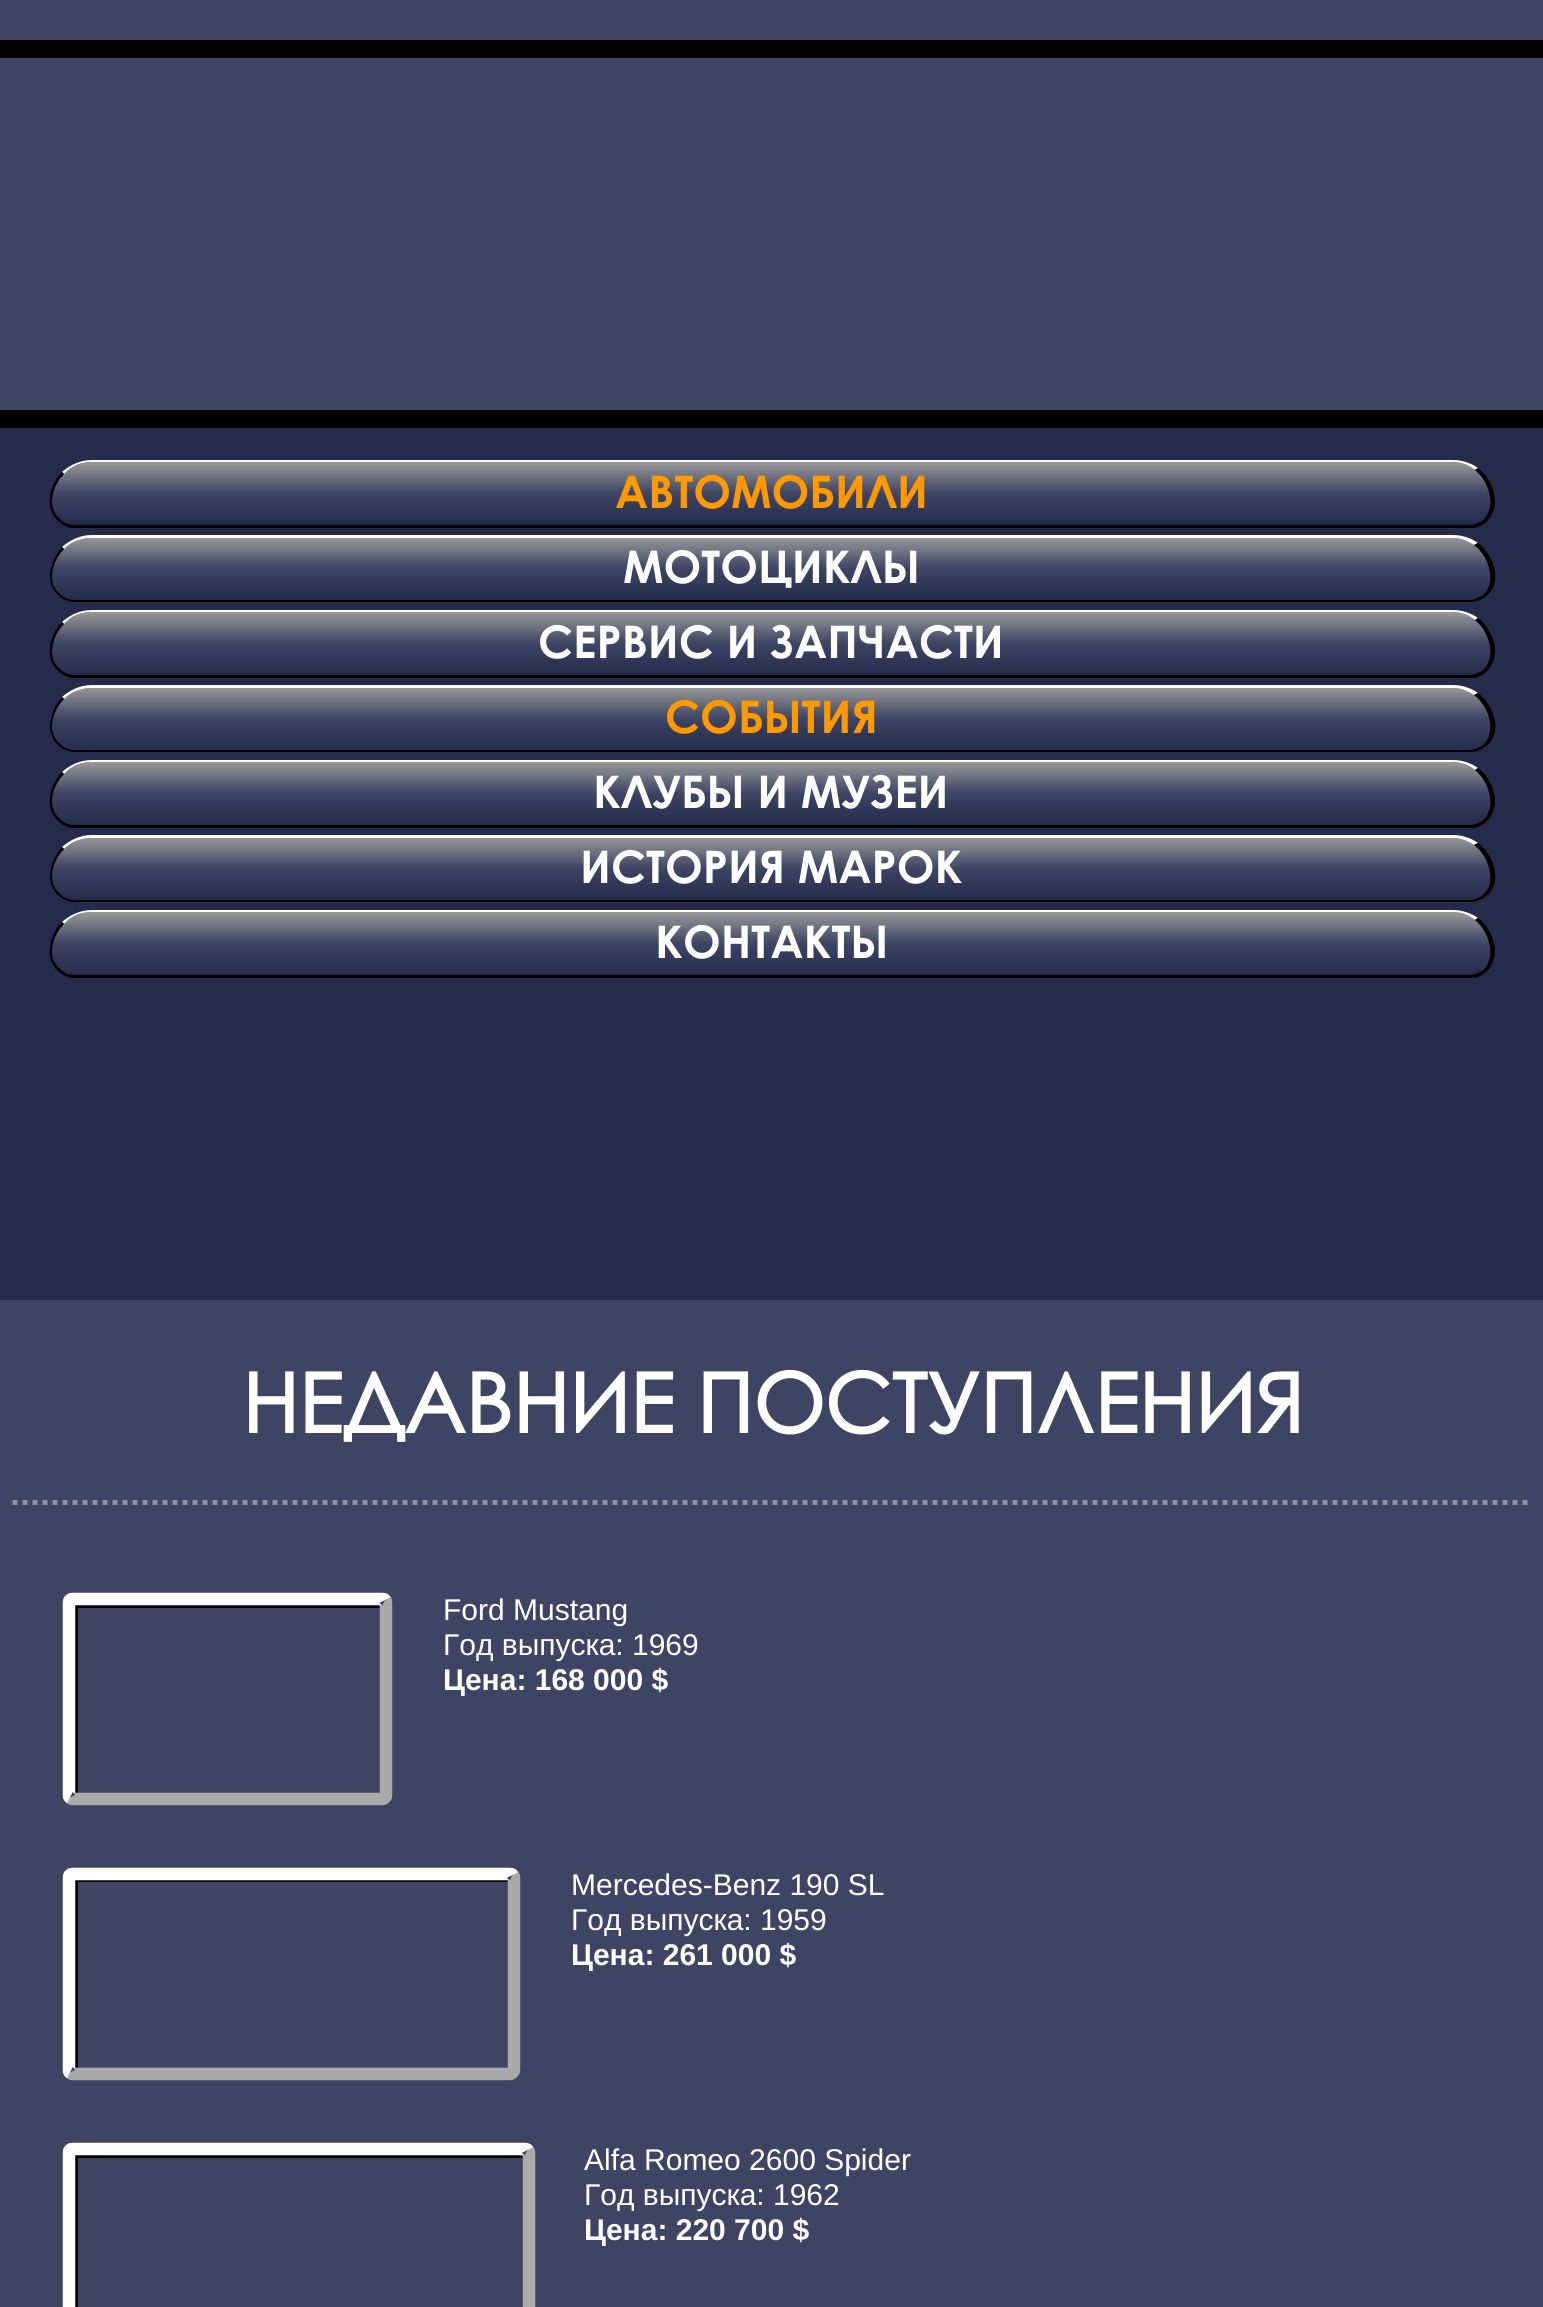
#include <cairo.h>
#include <math.h>
#include <stddef.h>


int main(void) {
    cairo_surface_t *surface = cairo_image_surface_create(CAIRO_FORMAT_RGB24, 1543, 2307);
    cairo_t *cr = cairo_create(surface);
    cairo_font_options_t *options = cairo_font_options_create();
    cairo_font_options_set_hint_metrics(options, CAIRO_HINT_METRICS_OFF);
    cairo_font_options_set_hint_style(options, CAIRO_HINT_STYLE_NONE);
    cairo_set_font_options(cr, options);
    cairo_set_miter_limit(cr, 4);
    cairo_pattern_t *gradient;
    cairo_set_source_rgb(cr, 0.243, 0.267, 0.392);
    cairo_paint(cr);
    cairo_set_source_rgb(cr, 0, 0, 0);
    cairo_rectangle(cr, 0, 40, 1543, 18);
    cairo_fill(cr);
    cairo_rectangle(cr, 0, 410, 1543, 18);
    cairo_fill(cr);
    cairo_set_source_rgb(cr, 0.145, 0.169, 0.29);
    cairo_rectangle(cr, 0, 428, 1543, 872);
    cairo_fill(cr);
    gradient = cairo_pattern_create_linear(771, 462, 771, 525);
    cairo_pattern_add_color_stop_rgba(gradient, 0, 0.6, 0.6, 0.6, 1);
    cairo_pattern_add_color_stop_rgba(gradient, 0.5, 0.243, 0.267, 0.392, 1);
    cairo_pattern_add_color_stop_rgba(gradient, 1, 0.145, 0.169, 0.29, 1);
    cairo_set_source(cr, gradient);
    cairo_pattern_destroy(gradient);
    cairo_new_path(cr);
    cairo_move_to(cr, 92, 462);
    cairo_line_to(cr, 1453, 462);
    cairo_curve_to(cr, 1473, 462, 1490, 480, 1490, 502);
    cairo_curve_to(cr, 1490, 515, 1481, 525, 1470, 525);
    cairo_line_to(cr, 75, 525);
    cairo_curve_to(cr, 63, 525, 52, 515, 52, 502);
    cairo_curve_to(cr, 52, 480, 70, 462, 92, 462);
    cairo_close_path(cr);
    cairo_fill(cr);
    cairo_set_source_rgb(cr, 1, 1, 1);
    cairo_new_path(cr);
    cairo_move_to(cr, 92, 460);
    cairo_curve_to(cr, 80, 460, 70, 465, 62, 472);
    cairo_line_to(cr, 64, 474);
    cairo_curve_to(cr, 71, 466, 81, 462, 92, 462);
    cairo_line_to(cr, 1453, 462);
    cairo_curve_to(cr, 1461, 462, 1469, 465, 1475, 470);
    cairo_line_to(cr, 1478, 468);
    cairo_curve_to(cr, 1471, 463, 1462, 460, 1453, 460);
    cairo_close_path(cr);
    cairo_fill(cr);
    cairo_set_source_rgb(cr, 0, 0, 0);
    cairo_new_path(cr);
    cairo_move_to(cr, 1478, 468);
    cairo_curve_to(cr, 1494, 480, 1503, 508, 1485, 523);
    cairo_line_to(cr, 1482, 521);
    cairo_curve_to(cr, 1498, 508, 1489, 481, 1475, 470);
    cairo_close_path(cr);
    cairo_fill(cr);
    cairo_new_path(cr);
    cairo_move_to(cr, 70, 528);
    cairo_curve_to(cr, 65, 526, 61, 524, 57, 520);
    cairo_line_to(cr, 59, 518);
    cairo_curve_to(cr, 63, 523, 69, 525, 75, 525);
    cairo_line_to(cr, 1470, 525);
    cairo_curve_to(cr, 1474, 525, 1478, 523, 1482, 521);
    cairo_line_to(cr, 1485, 523);
    cairo_curve_to(cr, 1482, 525, 1479, 527, 1475, 528);
    cairo_close_path(cr);
    cairo_fill(cr);
    cairo_new_path(cr);
    cairo_move_to(cr, 57, 520);
    cairo_curve_to(cr, 44, 507, 50, 484, 62, 472);
    cairo_line_to(cr, 64, 474);
    cairo_curve_to(cr, 53, 485, 46, 506, 59, 518);
    cairo_close_path(cr);
    cairo_fill(cr);
    cairo_select_font_face(cr, "Century Gothic", CAIRO_FONT_SLANT_NORMAL, CAIRO_FONT_WEIGHT_BOLD);
    cairo_set_font_size(cr, 45);
    cairo_set_source_rgb(cr, 1, 0.6, 0);
    cairo_move_to(cr, 615, 508);
    cairo_show_text(cr, "АВТОМОБИЛИ");
    gradient = cairo_pattern_create_linear(771, 537, 771, 600);
    cairo_pattern_add_color_stop_rgba(gradient, 0, 0.6, 0.6, 0.6, 1);
    cairo_pattern_add_color_stop_rgba(gradient, 0.5, 0.243, 0.267, 0.392, 1);
    cairo_pattern_add_color_stop_rgba(gradient, 1, 0.145, 0.169, 0.29, 1);
    cairo_set_source(cr, gradient);
    cairo_pattern_destroy(gradient);
    cairo_new_path(cr);
    cairo_move_to(cr, 92, 538);
    cairo_line_to(cr, 1453, 538);
    cairo_curve_to(cr, 1473, 538, 1490, 555, 1490, 577);
    cairo_curve_to(cr, 1490, 590, 1481, 600, 1470, 600);
    cairo_line_to(cr, 75, 600);
    cairo_curve_to(cr, 63, 600, 52, 590, 52, 577);
    cairo_curve_to(cr, 52, 555, 70, 538, 92, 538);
    cairo_close_path(cr);
    cairo_fill(cr);
    cairo_set_source_rgb(cr, 1, 1, 1);
    cairo_new_path(cr);
    cairo_move_to(cr, 92, 535);
    cairo_curve_to(cr, 80, 535, 70, 540, 62, 547);
    cairo_line_to(cr, 64, 549);
    cairo_curve_to(cr, 71, 542, 81, 538, 92, 538);
    cairo_line_to(cr, 1453, 538);
    cairo_curve_to(cr, 1461, 538, 1468, 541, 1474, 545);
    cairo_line_to(cr, 1478, 543);
    cairo_curve_to(cr, 1471, 538, 1462, 535, 1453, 535);
    cairo_close_path(cr);
    cairo_fill(cr);
    cairo_set_source_rgb(cr, 0, 0, 0);
    cairo_new_path(cr);
    cairo_move_to(cr, 1478, 543);
    cairo_curve_to(cr, 1494, 555, 1504, 584, 1485, 597);
    cairo_line_to(cr, 1482, 596);
    cairo_curve_to(cr, 1498, 583, 1489, 556, 1474, 545);
    cairo_close_path(cr);
    cairo_fill(cr);
    cairo_new_path(cr);
    cairo_move_to(cr, 1485, 597);
    cairo_curve_to(cr, 1481, 600, 1476, 602, 1470, 602);
    cairo_line_to(cr, 75, 602);
    cairo_curve_to(cr, 68, 602, 62, 599, 58, 595);
    cairo_line_to(cr, 59, 593);
    cairo_curve_to(cr, 63, 598, 69, 600, 75, 600);
    cairo_line_to(cr, 1470, 600);
    cairo_curve_to(cr, 1474, 600, 1478, 598, 1482, 596);
    cairo_close_path(cr);
    cairo_fill(cr);
    cairo_new_path(cr);
    cairo_move_to(cr, 58, 595);
    cairo_curve_to(cr, 44, 582, 51, 559, 62, 547);
    cairo_line_to(cr, 64, 549);
    cairo_curve_to(cr, 53, 560, 46, 581, 59, 593);
    cairo_close_path(cr);
    cairo_fill(cr);
    cairo_set_source_rgb(cr, 1, 1, 1);
    cairo_move_to(cr, 623, 583);
    cairo_show_text(cr, "МОТОЦИКЛЫ");
    gradient = cairo_pattern_create_linear(771, 612, 771, 675);
    cairo_pattern_add_color_stop_rgba(gradient, 0, 0.6, 0.6, 0.6, 1);
    cairo_pattern_add_color_stop_rgba(gradient, 0.5, 0.243, 0.267, 0.392, 1);
    cairo_pattern_add_color_stop_rgba(gradient, 1, 0.145, 0.169, 0.29, 1);
    cairo_set_source(cr, gradient);
    cairo_pattern_destroy(gradient);
    cairo_new_path(cr);
    cairo_move_to(cr, 92, 612);
    cairo_line_to(cr, 1453, 612);
    cairo_curve_to(cr, 1473, 612, 1490, 630, 1490, 652);
    cairo_curve_to(cr, 1490, 665, 1481, 675, 1470, 675);
    cairo_line_to(cr, 75, 675);
    cairo_curve_to(cr, 63, 675, 52, 665, 52, 652);
    cairo_curve_to(cr, 52, 630, 70, 612, 92, 612);
    cairo_close_path(cr);
    cairo_fill(cr);
    cairo_set_source_rgb(cr, 1, 1, 1);
    cairo_new_path(cr);
    cairo_move_to(cr, 92, 610);
    cairo_curve_to(cr, 80, 610, 70, 615, 62, 622);
    cairo_line_to(cr, 64, 624);
    cairo_curve_to(cr, 71, 616, 81, 612, 92, 612);
    cairo_line_to(cr, 1453, 612);
    cairo_curve_to(cr, 1461, 612, 1469, 615, 1475, 620);
    cairo_line_to(cr, 1478, 618);
    cairo_curve_to(cr, 1471, 613, 1462, 610, 1453, 610);
    cairo_close_path(cr);
    cairo_fill(cr);
    cairo_set_source_rgb(cr, 0, 0, 0);
    cairo_new_path(cr);
    cairo_move_to(cr, 1478, 618);
    cairo_curve_to(cr, 1494, 630, 1503, 658, 1485, 673);
    cairo_line_to(cr, 1482, 671);
    cairo_curve_to(cr, 1498, 658, 1489, 631, 1475, 620);
    cairo_close_path(cr);
    cairo_fill(cr);
    cairo_new_path(cr);
    cairo_move_to(cr, 70, 678);
    cairo_curve_to(cr, 65, 676, 61, 674, 57, 670);
    cairo_line_to(cr, 59, 668);
    cairo_curve_to(cr, 63, 673, 69, 675, 75, 675);
    cairo_line_to(cr, 1470, 675);
    cairo_curve_to(cr, 1474, 675, 1478, 673, 1482, 671);
    cairo_line_to(cr, 1485, 673);
    cairo_curve_to(cr, 1482, 675, 1479, 677, 1475, 678);
    cairo_close_path(cr);
    cairo_fill(cr);
    cairo_new_path(cr);
    cairo_move_to(cr, 57, 670);
    cairo_curve_to(cr, 44, 657, 50, 634, 62, 622);
    cairo_line_to(cr, 64, 624);
    cairo_curve_to(cr, 53, 635, 46, 656, 59, 668);
    cairo_close_path(cr);
    cairo_fill(cr);
    cairo_set_source_rgb(cr, 1, 1, 1);
    cairo_move_to(cr, 538, 658);
    cairo_show_text(cr, "СЕРВИС И ЗАПЧАСТИ");
    gradient = cairo_pattern_create_linear(771, 687, 771, 750);
    cairo_pattern_add_color_stop_rgba(gradient, 0, 0.6, 0.6, 0.6, 1);
    cairo_pattern_add_color_stop_rgba(gradient, 0.5, 0.243, 0.267, 0.392, 1);
    cairo_pattern_add_color_stop_rgba(gradient, 1, 0.145, 0.169, 0.29, 1);
    cairo_set_source(cr, gradient);
    cairo_pattern_destroy(gradient);
    cairo_new_path(cr);
    cairo_move_to(cr, 92, 688);
    cairo_line_to(cr, 1453, 688);
    cairo_curve_to(cr, 1473, 688, 1490, 705, 1490, 727);
    cairo_curve_to(cr, 1490, 740, 1481, 750, 1470, 750);
    cairo_line_to(cr, 75, 750);
    cairo_curve_to(cr, 63, 750, 52, 740, 52, 727);
    cairo_curve_to(cr, 52, 705, 70, 688, 92, 688);
    cairo_close_path(cr);
    cairo_fill(cr);
    cairo_set_source_rgb(cr, 1, 1, 1);
    cairo_new_path(cr);
    cairo_move_to(cr, 92, 685);
    cairo_curve_to(cr, 80, 685, 70, 690, 62, 697);
    cairo_line_to(cr, 64, 699);
    cairo_curve_to(cr, 71, 692, 81, 688, 92, 688);
    cairo_line_to(cr, 1453, 688);
    cairo_curve_to(cr, 1461, 688, 1468, 691, 1474, 695);
    cairo_line_to(cr, 1478, 693);
    cairo_curve_to(cr, 1471, 688, 1462, 685, 1453, 685);
    cairo_close_path(cr);
    cairo_fill(cr);
    cairo_set_source_rgb(cr, 0, 0, 0);
    cairo_new_path(cr);
    cairo_move_to(cr, 1478, 693);
    cairo_curve_to(cr, 1494, 705, 1504, 734, 1485, 747);
    cairo_line_to(cr, 1482, 746);
    cairo_curve_to(cr, 1498, 733, 1489, 706, 1474, 695);
    cairo_close_path(cr);
    cairo_fill(cr);
    cairo_new_path(cr);
    cairo_move_to(cr, 1485, 747);
    cairo_curve_to(cr, 1481, 750, 1476, 752, 1470, 752);
    cairo_line_to(cr, 75, 752);
    cairo_curve_to(cr, 68, 752, 62, 749, 58, 745);
    cairo_line_to(cr, 59, 743);
    cairo_curve_to(cr, 63, 748, 69, 750, 75, 750);
    cairo_line_to(cr, 1470, 750);
    cairo_curve_to(cr, 1474, 750, 1478, 748, 1482, 746);
    cairo_close_path(cr);
    cairo_fill(cr);
    cairo_new_path(cr);
    cairo_move_to(cr, 58, 745);
    cairo_curve_to(cr, 44, 732, 51, 709, 62, 697);
    cairo_line_to(cr, 64, 699);
    cairo_curve_to(cr, 53, 710, 46, 731, 59, 743);
    cairo_close_path(cr);
    cairo_fill(cr);
    cairo_set_source_rgb(cr, 1, 0.6, 0);
    cairo_move_to(cr, 665, 733);
    cairo_show_text(cr, "СОБЫТИЯ");
    gradient = cairo_pattern_create_linear(771, 762, 771, 825);
    cairo_pattern_add_color_stop_rgba(gradient, 0, 0.6, 0.6, 0.6, 1);
    cairo_pattern_add_color_stop_rgba(gradient, 0.5, 0.243, 0.267, 0.392, 1);
    cairo_pattern_add_color_stop_rgba(gradient, 1, 0.145, 0.169, 0.29, 1);
    cairo_set_source(cr, gradient);
    cairo_pattern_destroy(gradient);
    cairo_new_path(cr);
    cairo_move_to(cr, 92, 762);
    cairo_line_to(cr, 1453, 762);
    cairo_curve_to(cr, 1473, 762, 1490, 780, 1490, 802);
    cairo_curve_to(cr, 1490, 815, 1481, 825, 1470, 825);
    cairo_line_to(cr, 75, 825);
    cairo_curve_to(cr, 63, 825, 52, 815, 52, 802);
    cairo_curve_to(cr, 52, 780, 70, 762, 92, 762);
    cairo_close_path(cr);
    cairo_fill(cr);
    cairo_set_source_rgb(cr, 1, 1, 1);
    cairo_new_path(cr);
    cairo_move_to(cr, 92, 760);
    cairo_curve_to(cr, 80, 760, 70, 765, 62, 772);
    cairo_line_to(cr, 64, 774);
    cairo_curve_to(cr, 71, 766, 81, 762, 92, 762);
    cairo_line_to(cr, 1453, 762);
    cairo_curve_to(cr, 1461, 762, 1469, 765, 1475, 770);
    cairo_line_to(cr, 1478, 768);
    cairo_curve_to(cr, 1471, 763, 1462, 760, 1453, 760);
    cairo_close_path(cr);
    cairo_fill(cr);
    cairo_set_source_rgb(cr, 0, 0, 0);
    cairo_new_path(cr);
    cairo_move_to(cr, 1478, 768);
    cairo_curve_to(cr, 1494, 780, 1503, 808, 1485, 823);
    cairo_line_to(cr, 1482, 821);
    cairo_curve_to(cr, 1498, 808, 1489, 781, 1475, 770);
    cairo_close_path(cr);
    cairo_fill(cr);
    cairo_new_path(cr);
    cairo_move_to(cr, 70, 828);
    cairo_curve_to(cr, 65, 826, 61, 824, 57, 820);
    cairo_line_to(cr, 59, 818);
    cairo_curve_to(cr, 63, 823, 69, 825, 75, 825);
    cairo_line_to(cr, 1470, 825);
    cairo_curve_to(cr, 1474, 825, 1478, 823, 1482, 821);
    cairo_line_to(cr, 1485, 823);
    cairo_curve_to(cr, 1482, 825, 1479, 827, 1475, 828);
    cairo_close_path(cr);
    cairo_fill(cr);
    cairo_new_path(cr);
    cairo_move_to(cr, 57, 820);
    cairo_curve_to(cr, 44, 807, 50, 784, 62, 772);
    cairo_line_to(cr, 64, 774);
    cairo_curve_to(cr, 53, 785, 46, 806, 59, 818);
    cairo_close_path(cr);
    cairo_fill(cr);
    cairo_set_source_rgb(cr, 1, 1, 1);
    cairo_move_to(cr, 593, 808);
    cairo_show_text(cr, "КЛУБЫ И МУЗЕИ");
    gradient = cairo_pattern_create_linear(771, 837, 771, 900);
    cairo_pattern_add_color_stop_rgba(gradient, 0, 0.6, 0.6, 0.6, 1);
    cairo_pattern_add_color_stop_rgba(gradient, 0.5, 0.243, 0.267, 0.392, 1);
    cairo_pattern_add_color_stop_rgba(gradient, 1, 0.145, 0.169, 0.29, 1);
    cairo_set_source(cr, gradient);
    cairo_pattern_destroy(gradient);
    cairo_new_path(cr);
    cairo_move_to(cr, 92, 838);
    cairo_line_to(cr, 1453, 838);
    cairo_curve_to(cr, 1473, 838, 1490, 855, 1490, 877);
    cairo_curve_to(cr, 1490, 890, 1481, 900, 1470, 900);
    cairo_line_to(cr, 75, 900);
    cairo_curve_to(cr, 63, 900, 52, 890, 52, 877);
    cairo_curve_to(cr, 52, 855, 70, 838, 92, 838);
    cairo_close_path(cr);
    cairo_fill(cr);
    cairo_set_source_rgb(cr, 1, 1, 1);
    cairo_new_path(cr);
    cairo_move_to(cr, 92, 835);
    cairo_curve_to(cr, 80, 835, 70, 840, 62, 847);
    cairo_line_to(cr, 64, 849);
    cairo_curve_to(cr, 71, 842, 81, 838, 92, 838);
    cairo_line_to(cr, 1453, 838);
    cairo_curve_to(cr, 1461, 838, 1468, 841, 1474, 845);
    cairo_line_to(cr, 1478, 843);
    cairo_curve_to(cr, 1471, 838, 1462, 835, 1453, 835);
    cairo_close_path(cr);
    cairo_fill(cr);
    cairo_set_source_rgb(cr, 0, 0, 0);
    cairo_new_path(cr);
    cairo_move_to(cr, 1478, 843);
    cairo_curve_to(cr, 1494, 855, 1504, 884, 1485, 897);
    cairo_line_to(cr, 1482, 896);
    cairo_curve_to(cr, 1498, 883, 1489, 856, 1474, 845);
    cairo_close_path(cr);
    cairo_fill(cr);
    cairo_new_path(cr);
    cairo_move_to(cr, 1485, 897);
    cairo_curve_to(cr, 1481, 900, 1476, 902, 1470, 902);
    cairo_line_to(cr, 75, 902);
    cairo_curve_to(cr, 68, 902, 62, 899, 58, 895);
    cairo_line_to(cr, 59, 893);
    cairo_curve_to(cr, 63, 898, 69, 900, 75, 900);
    cairo_line_to(cr, 1470, 900);
    cairo_curve_to(cr, 1474, 900, 1478, 898, 1482, 896);
    cairo_close_path(cr);
    cairo_fill(cr);
    cairo_new_path(cr);
    cairo_move_to(cr, 58, 895);
    cairo_curve_to(cr, 44, 882, 51, 859, 62, 847);
    cairo_line_to(cr, 64, 849);
    cairo_curve_to(cr, 53, 860, 46, 881, 59, 893);
    cairo_close_path(cr);
    cairo_fill(cr);
    cairo_set_source_rgb(cr, 1, 1, 1);
    cairo_move_to(cr, 580, 883);
    cairo_show_text(cr, "ИСТОРИЯ МАРОК");
    gradient = cairo_pattern_create_linear(771, 912, 771, 975);
    cairo_pattern_add_color_stop_rgba(gradient, 0, 0.6, 0.6, 0.6, 1);
    cairo_pattern_add_color_stop_rgba(gradient, 0.5, 0.243, 0.267, 0.392, 1);
    cairo_pattern_add_color_stop_rgba(gradient, 1, 0.145, 0.169, 0.29, 1);
    cairo_set_source(cr, gradient);
    cairo_pattern_destroy(gradient);
    cairo_new_path(cr);
    cairo_move_to(cr, 92, 912);
    cairo_line_to(cr, 1453, 912);
    cairo_curve_to(cr, 1473, 912, 1490, 930, 1490, 952);
    cairo_curve_to(cr, 1490, 965, 1481, 975, 1470, 975);
    cairo_line_to(cr, 75, 975);
    cairo_curve_to(cr, 63, 975, 52, 965, 52, 952);
    cairo_curve_to(cr, 52, 930, 70, 912, 92, 912);
    cairo_close_path(cr);
    cairo_fill(cr);
    cairo_set_source_rgb(cr, 1, 1, 1);
    cairo_new_path(cr);
    cairo_move_to(cr, 92, 910);
    cairo_curve_to(cr, 80, 910, 70, 915, 62, 922);
    cairo_line_to(cr, 64, 924);
    cairo_curve_to(cr, 71, 916, 81, 912, 92, 912);
    cairo_line_to(cr, 1453, 912);
    cairo_curve_to(cr, 1461, 912, 1469, 915, 1475, 920);
    cairo_line_to(cr, 1478, 918);
    cairo_curve_to(cr, 1471, 913, 1462, 910, 1453, 910);
    cairo_close_path(cr);
    cairo_fill(cr);
    cairo_set_source_rgb(cr, 0, 0, 0);
    cairo_new_path(cr);
    cairo_move_to(cr, 1478, 918);
    cairo_curve_to(cr, 1494, 930, 1503, 958, 1485, 973);
    cairo_line_to(cr, 1482, 971);
    cairo_curve_to(cr, 1498, 958, 1489, 931, 1475, 920);
    cairo_close_path(cr);
    cairo_fill(cr);
    cairo_new_path(cr);
    cairo_move_to(cr, 70, 978);
    cairo_curve_to(cr, 65, 976, 61, 974, 57, 970);
    cairo_line_to(cr, 59, 968);
    cairo_curve_to(cr, 63, 973, 69, 975, 75, 975);
    cairo_line_to(cr, 1470, 975);
    cairo_curve_to(cr, 1474, 975, 1478, 973, 1482, 971);
    cairo_line_to(cr, 1485, 973);
    cairo_curve_to(cr, 1482, 975, 1479, 977, 1475, 978);
    cairo_close_path(cr);
    cairo_fill(cr);
    cairo_new_path(cr);
    cairo_move_to(cr, 57, 970);
    cairo_curve_to(cr, 44, 957, 50, 934, 62, 922);
    cairo_line_to(cr, 64, 924);
    cairo_curve_to(cr, 53, 935, 46, 956, 59, 968);
    cairo_close_path(cr);
    cairo_fill(cr);
    cairo_set_source_rgb(cr, 1, 1, 1);
    cairo_move_to(cr, 655, 958);
    cairo_show_text(cr, "КОНТАКТЫ");
    cairo_select_font_face(cr, "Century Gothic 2", CAIRO_FONT_SLANT_NORMAL, CAIRO_FONT_WEIGHT_BOLD);
    cairo_set_font_size(cr, 82.4);
    cairo_move_to(cr, 242, 1433);
    cairo_show_text(cr, "НЕДАВНИЕ ПОСТУПЛЕНИЯ");
    cairo_new_path(cr);
    cairo_move_to(cr, 12.5, 1502.5);
    cairo_line_to(cr, 1532.5, 1502.5);
    cairo_set_source_rgb(cr, 0.553, 0.565, 0.627);
    cairo_set_line_width(cr, 5);
    cairo_set_dash(cr, (double[]){5, 5}, 2, 0);
    cairo_stroke(cr);
    cairo_save(cr);
    cairo_rectangle(cr, 75, 1605, 305, 188);
    cairo_clip(cr);
    cairo_set_source_rgb(cr, 0, 0, 0);
    cairo_set_fill_rule(cr, CAIRO_FILL_RULE_EVEN_ODD);
    cairo_new_path(cr);
    cairo_move_to(cr, -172, 1358);
    cairo_line_to(cr, 628, 1358);
    cairo_line_to(cr, 628, 2040);
    cairo_line_to(cr, -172, 2040);
    cairo_close_path(cr);
    cairo_move_to(cr, 78, 1608);
    cairo_line_to(cr, 382, 1608);
    cairo_line_to(cr, 382, 1795);
    cairo_line_to(cr, 78, 1795);
    cairo_close_path(cr);
    cairo_fill(cr);
    cairo_restore(cr);
    cairo_new_path(cr);
    cairo_move_to(cr, 385, 1600);
    cairo_curve_to(cr, 386, 1600.5, 386, 1601.5, 386, 1602.5);
    cairo_line_to(cr, 386, 1795);
    cairo_curve_to(cr, 386, 1796, 386, 1797, 385, 1797.5);
    cairo_curve_to(cr, 384.5, 1798.5, 383.5, 1799, 382.5, 1799);
    cairo_line_to(cr, 72.5, 1799);
    cairo_curve_to(cr, 71.5, 1799, 70.5, 1798.5, 70, 1797.5);
    cairo_set_source_rgb(cr, 0.667, 0.667, 0.667);
    cairo_set_line_width(cr, 12.5);
    cairo_set_dash(cr, NULL, 0, 0);
    cairo_stroke(cr);
    cairo_new_path(cr);
    cairo_move_to(cr, 70, 1797.5);
    cairo_curve_to(cr, 69, 1797, 69, 1796, 69, 1795);
    cairo_line_to(cr, 69, 1602.5);
    cairo_curve_to(cr, 69, 1601.5, 69, 1600.5, 70, 1600);
    cairo_curve_to(cr, 70.5, 1599, 71.5, 1599, 72.5, 1599);
    cairo_line_to(cr, 382.5, 1599);
    cairo_curve_to(cr, 383.5, 1599, 384.5, 1599, 385, 1600);
    cairo_set_source_rgb(cr, 1, 1, 1);
    cairo_stroke(cr);
    cairo_select_font_face(cr, "Liberation Sans", CAIRO_FONT_SLANT_NORMAL, CAIRO_FONT_WEIGHT_NORMAL);
    cairo_set_font_size(cr, 30);
    cairo_move_to(cr, 443, 1620);
    cairo_show_text(cr, "Ford Mustang");
    cairo_move_to(cr, 443, 1655);
    cairo_show_text(cr, "Год выпуска: 1969");
    cairo_select_font_face(cr, "Liberation Sans", CAIRO_FONT_SLANT_NORMAL, CAIRO_FONT_WEIGHT_BOLD);
    cairo_move_to(cr, 443, 1690);
    cairo_show_text(cr, "Цена: 168 000 $");
    cairo_save(cr);
    cairo_rectangle(cr, 75, 1880, 433, 188);
    cairo_clip(cr);
    cairo_set_source_rgb(cr, 0, 0, 0);
    cairo_set_fill_rule(cr, CAIRO_FILL_RULE_EVEN_ODD);
    cairo_new_path(cr);
    cairo_move_to(cr, -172, 1632);
    cairo_line_to(cr, 755, 1632);
    cairo_line_to(cr, 755, 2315);
    cairo_line_to(cr, -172, 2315);
    cairo_close_path(cr);
    cairo_move_to(cr, 78, 1882);
    cairo_line_to(cr, 510, 1882);
    cairo_line_to(cr, 510, 2070);
    cairo_line_to(cr, 78, 2070);
    cairo_close_path(cr);
    cairo_fill(cr);
    cairo_restore(cr);
    cairo_new_path(cr);
    cairo_move_to(cr, 512.5, 1875);
    cairo_curve_to(cr, 513.5, 1875.5, 514, 1876.5, 514, 1877.5);
    cairo_line_to(cr, 514, 2070);
    cairo_curve_to(cr, 514, 2071, 513.5, 2072, 512.5, 2072.5);
    cairo_curve_to(cr, 512, 2073.5, 511, 2074, 510, 2074);
    cairo_line_to(cr, 72.5, 2074);
    cairo_curve_to(cr, 71.5, 2074, 70.5, 2073.5, 70, 2072.5);
    cairo_set_source_rgb(cr, 0.667, 0.667, 0.667);
    cairo_stroke(cr);
    cairo_new_path(cr);
    cairo_move_to(cr, 70, 2072.5);
    cairo_curve_to(cr, 69, 2072, 69, 2071, 69, 2070);
    cairo_line_to(cr, 69, 1877.5);
    cairo_curve_to(cr, 69, 1876.5, 69, 1875.5, 70, 1875);
    cairo_curve_to(cr, 70.5, 1874, 71.5, 1874, 72.5, 1874);
    cairo_line_to(cr, 510, 1874);
    cairo_curve_to(cr, 511, 1874, 512, 1874, 512.5, 1875);
    cairo_set_source_rgb(cr, 1, 1, 1);
    cairo_stroke(cr);
    cairo_select_font_face(cr, "Liberation Sans", CAIRO_FONT_SLANT_NORMAL, CAIRO_FONT_WEIGHT_NORMAL);
    cairo_move_to(cr, 571, 1895);
    cairo_show_text(cr, "Mercedes-Benz 190 SL");
    cairo_move_to(cr, 571, 1930);
    cairo_show_text(cr, "Год выпуска: 1959");
    cairo_select_font_face(cr, "Liberation Sans", CAIRO_FONT_SLANT_NORMAL, CAIRO_FONT_WEIGHT_BOLD);
    cairo_move_to(cr, 571, 1965);
    cairo_show_text(cr, "Цена: 261 000 $");
    cairo_save(cr);
    cairo_rectangle(cr, 75, 2155, 448, 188);
    cairo_clip(cr);
    cairo_set_source_rgb(cr, 0, 0, 0);
    cairo_set_fill_rule(cr, CAIRO_FILL_RULE_EVEN_ODD);
    cairo_new_path(cr);
    cairo_move_to(cr, -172, 1908);
    cairo_line_to(cr, 770, 1908);
    cairo_line_to(cr, 770, 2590);
    cairo_line_to(cr, -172, 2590);
    cairo_close_path(cr);
    cairo_move_to(cr, 78, 2158);
    cairo_line_to(cr, 525, 2158);
    cairo_line_to(cr, 525, 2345);
    cairo_line_to(cr, 78, 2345);
    cairo_close_path(cr);
    cairo_fill(cr);
    cairo_restore(cr);
    cairo_new_path(cr);
    cairo_move_to(cr, 527.5, 2150);
    cairo_curve_to(cr, 528.5, 2150.5, 529, 2151.5, 529, 2152.5);
    cairo_line_to(cr, 529, 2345);
    cairo_curve_to(cr, 529, 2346, 528.5, 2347, 527.5, 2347.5);
    cairo_curve_to(cr, 527, 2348.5, 526, 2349, 525, 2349);
    cairo_line_to(cr, 72.5, 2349);
    cairo_curve_to(cr, 71.5, 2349, 70.5, 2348.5, 70, 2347.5);
    cairo_set_source_rgb(cr, 0.667, 0.667, 0.667);
    cairo_stroke(cr);
    cairo_new_path(cr);
    cairo_move_to(cr, 70, 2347.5);
    cairo_curve_to(cr, 69, 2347, 69, 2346, 69, 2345);
    cairo_line_to(cr, 69, 2152.5);
    cairo_curve_to(cr, 69, 2151.5, 69, 2150.5, 70, 2150);
    cairo_curve_to(cr, 70.5, 2149, 71.5, 2149, 72.5, 2149);
    cairo_line_to(cr, 525, 2149);
    cairo_curve_to(cr, 526, 2149, 527, 2149, 527.5, 2150);
    cairo_set_source_rgb(cr, 1, 1, 1);
    cairo_stroke(cr);
    cairo_select_font_face(cr, "Liberation Sans", CAIRO_FONT_SLANT_NORMAL, CAIRO_FONT_WEIGHT_NORMAL);
    cairo_move_to(cr, 584, 2170);
    cairo_show_text(cr, "Alfa Romeo 2600 Spider");
    cairo_move_to(cr, 584, 2205);
    cairo_show_text(cr, "Год выпуска: 1962");
    cairo_select_font_face(cr, "Liberation Sans", CAIRO_FONT_SLANT_NORMAL, CAIRO_FONT_WEIGHT_BOLD);
    cairo_move_to(cr, 584, 2240);
    cairo_show_text(cr, "Цена: 220 700 $");
    cairo_surface_write_to_png(surface, "page.png");
    cairo_font_options_destroy(options);
    cairo_destroy(cr);
    cairo_surface_destroy(surface);
    return 0;
}
